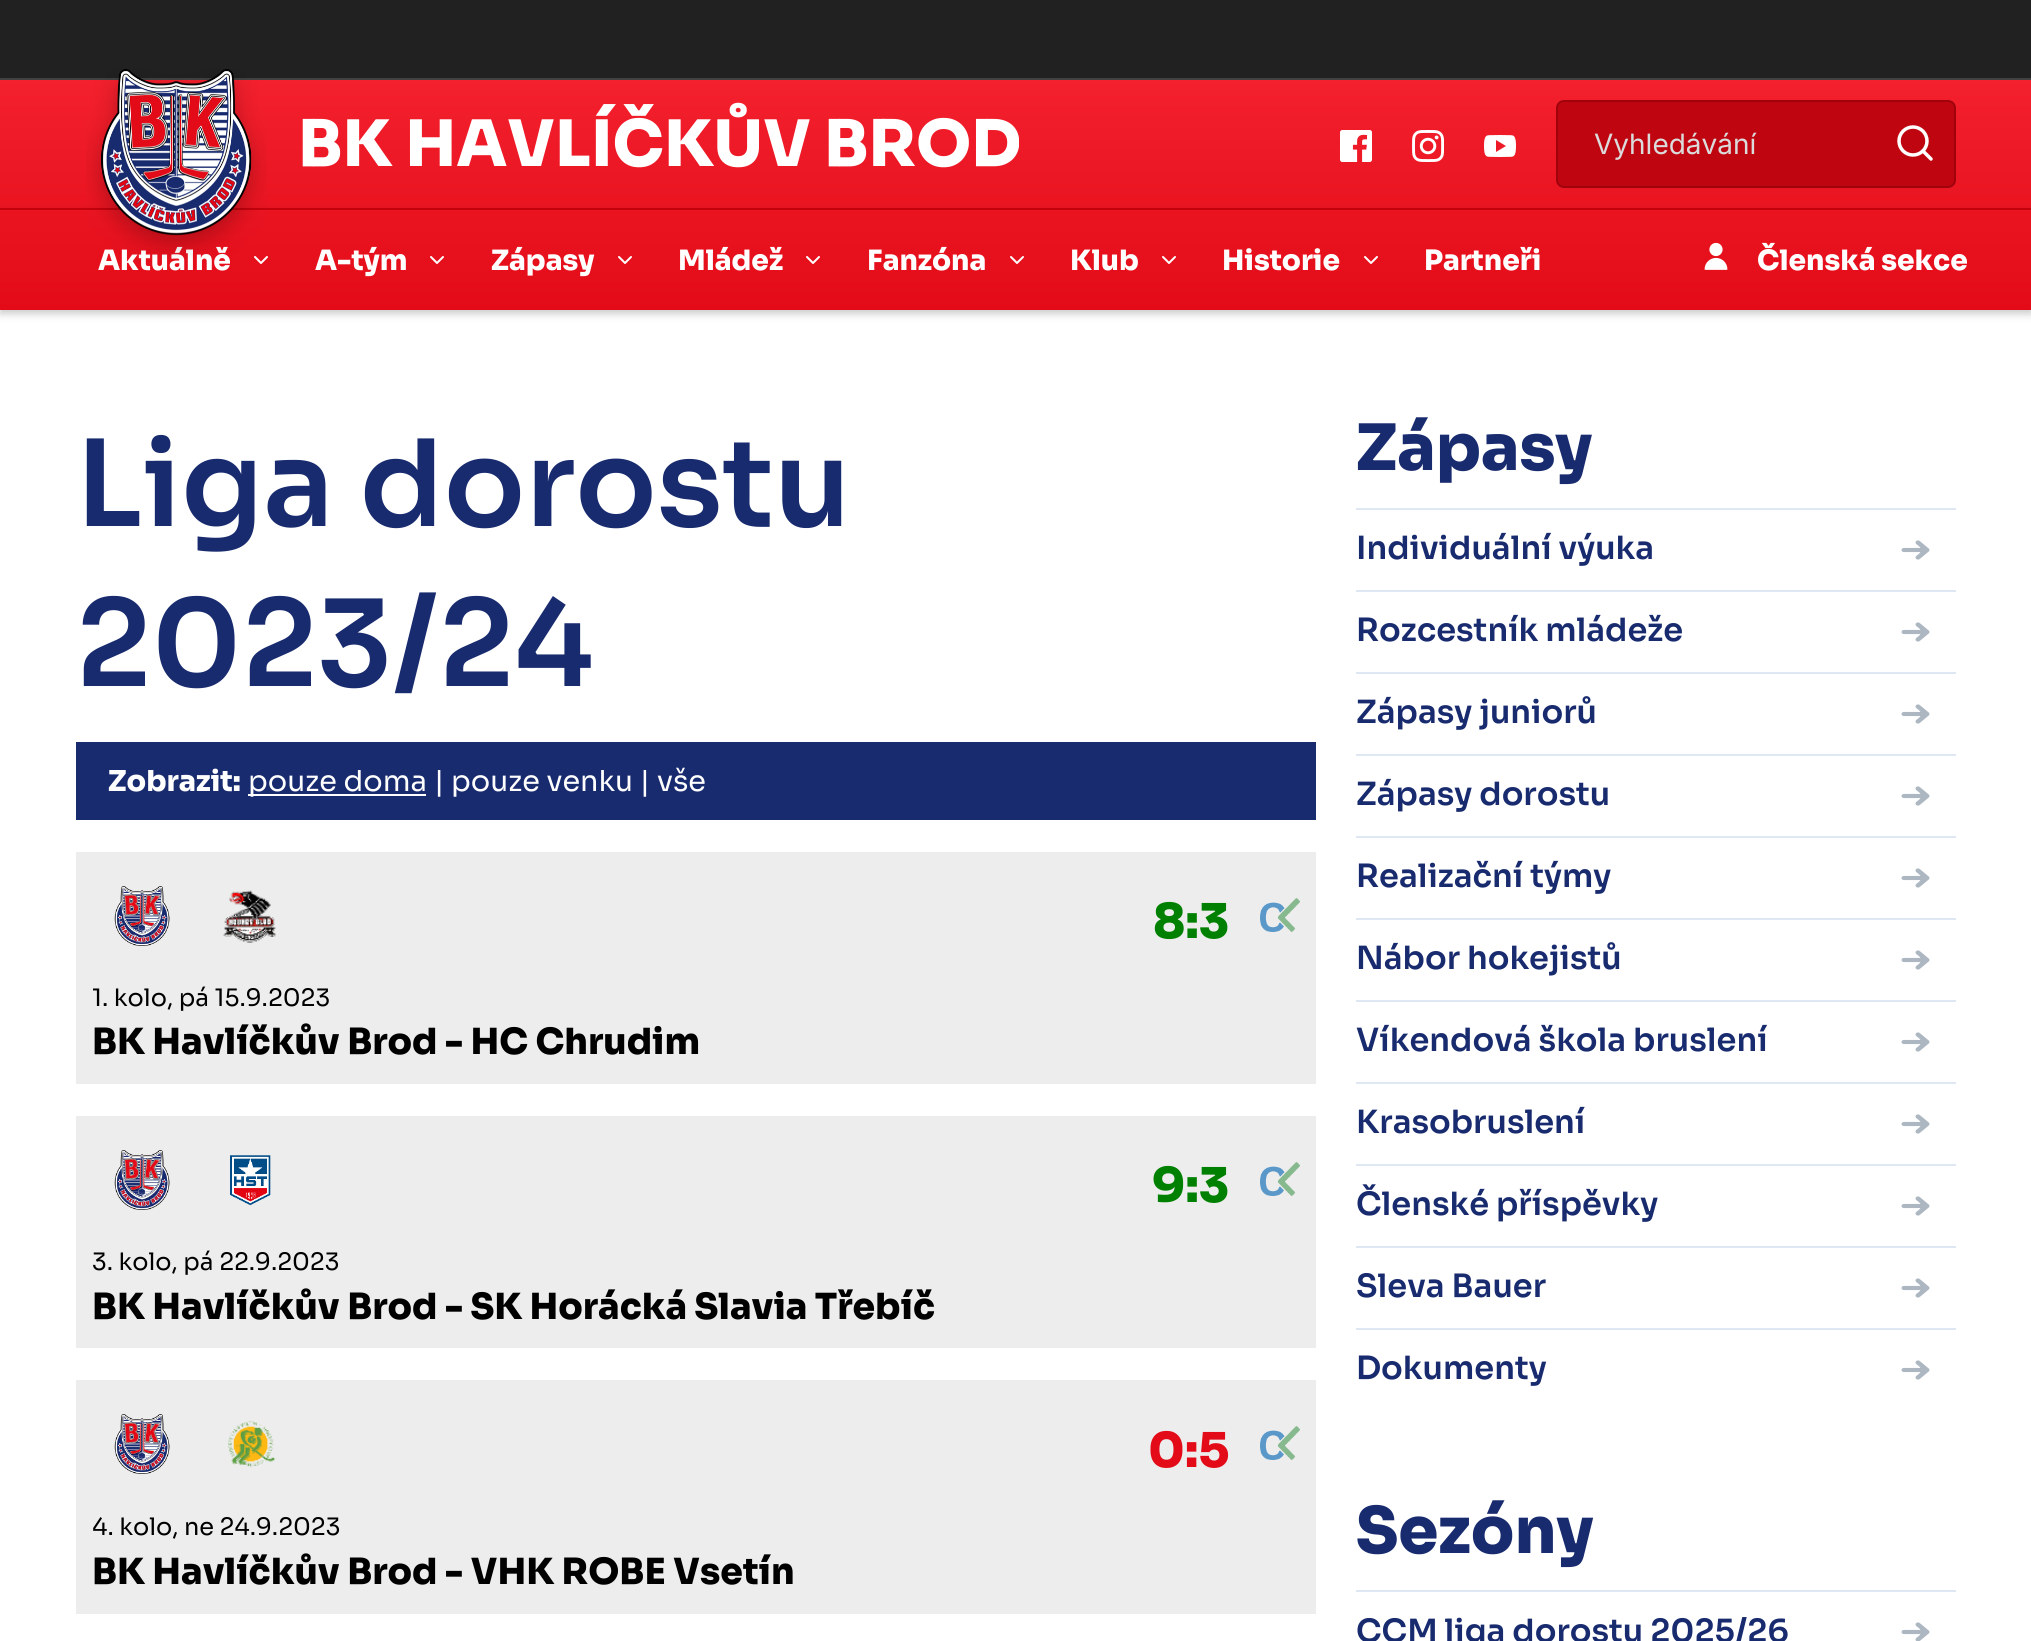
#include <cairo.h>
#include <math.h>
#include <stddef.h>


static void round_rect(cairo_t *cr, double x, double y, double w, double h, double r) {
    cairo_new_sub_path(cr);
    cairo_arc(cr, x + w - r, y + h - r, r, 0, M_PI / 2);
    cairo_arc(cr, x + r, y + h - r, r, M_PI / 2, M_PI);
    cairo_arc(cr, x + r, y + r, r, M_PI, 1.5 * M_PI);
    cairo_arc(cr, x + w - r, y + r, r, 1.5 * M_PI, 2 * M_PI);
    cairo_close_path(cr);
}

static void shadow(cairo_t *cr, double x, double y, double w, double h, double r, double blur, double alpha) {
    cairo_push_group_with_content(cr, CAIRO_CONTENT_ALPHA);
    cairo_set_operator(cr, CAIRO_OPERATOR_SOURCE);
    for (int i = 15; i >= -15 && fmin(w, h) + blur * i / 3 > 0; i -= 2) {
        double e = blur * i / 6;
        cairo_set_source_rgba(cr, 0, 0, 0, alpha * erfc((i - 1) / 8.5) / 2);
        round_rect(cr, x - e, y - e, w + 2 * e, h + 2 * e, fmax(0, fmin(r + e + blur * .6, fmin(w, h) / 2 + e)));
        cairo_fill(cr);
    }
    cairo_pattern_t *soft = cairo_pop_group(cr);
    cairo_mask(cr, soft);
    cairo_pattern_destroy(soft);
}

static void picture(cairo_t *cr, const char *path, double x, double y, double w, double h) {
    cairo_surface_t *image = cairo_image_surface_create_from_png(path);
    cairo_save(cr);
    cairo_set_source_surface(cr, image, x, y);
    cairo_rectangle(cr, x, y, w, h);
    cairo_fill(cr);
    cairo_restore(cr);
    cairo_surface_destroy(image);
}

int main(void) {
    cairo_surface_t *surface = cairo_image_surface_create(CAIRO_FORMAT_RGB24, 2031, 1641);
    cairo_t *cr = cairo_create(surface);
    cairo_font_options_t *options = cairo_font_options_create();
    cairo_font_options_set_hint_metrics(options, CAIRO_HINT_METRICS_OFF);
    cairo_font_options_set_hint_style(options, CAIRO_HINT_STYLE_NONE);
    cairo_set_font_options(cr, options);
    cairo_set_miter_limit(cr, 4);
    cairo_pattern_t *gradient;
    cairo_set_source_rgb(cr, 1, 1, 1);
    cairo_paint(cr);
    cairo_set_source_rgb(cr, 0.129, 0.129, 0.129);
    cairo_rectangle(cr, 0, 0, 2031, 78);
    cairo_fill(cr);
    cairo_set_source_rgb(cr, 0.259, 0.259, 0.259);
    cairo_rectangle(cr, 0, 78, 2031, 2);
    cairo_fill(cr);
    gradient = cairo_pattern_create_linear(1016, 80, 1016, 310);
    cairo_pattern_add_color_stop_rgba(gradient, 0, 0.953, 0.125, 0.176, 1);
    cairo_pattern_add_color_stop_rgba(gradient, 1, 0.89, 0.043, 0.094, 1);
    cairo_set_source(cr, gradient);
    cairo_pattern_destroy(gradient);
    cairo_rectangle(cr, 0, 80, 2031, 230);
    cairo_fill(cr);
    cairo_select_font_face(cr, "Sora ExtraBold", CAIRO_FONT_SLANT_NORMAL, CAIRO_FONT_WEIGHT_NORMAL);
    cairo_set_font_size(cr, 64);
    cairo_set_source_rgb(cr, 1, 1, 1);
    cairo_move_to(cr, 298, 166);
    cairo_show_text(cr, "BK HAVLÍČKŮV BROD");
    picture(cr, "img1.png", 1340, 130, 32, 32);
    picture(cr, "img2.png", 1412, 130, 32, 32);
    picture(cr, "img3.png", 1484, 135, 32, 22);
    cairo_set_source_rgb(cr, 0.749, 0.02, 0.063);
    round_rect(cr, 1557, 101, 398, 86, 7);
    cairo_fill_preserve(cr);
    cairo_set_source_rgb(cr, 0.627, 0.012, 0.047);
    cairo_stroke(cr);
    cairo_select_font_face(cr, "Inter", CAIRO_FONT_SLANT_NORMAL, CAIRO_FONT_WEIGHT_NORMAL);
    cairo_set_font_size(cr, 28);
    cairo_set_source_rgb(cr, 0.859, 0.859, 0.859);
    cairo_move_to(cr, 1594, 154);
    cairo_show_text(cr, "Vyhledávání");
    cairo_new_path(cr);
    cairo_arc(cr, 1913, 141, 14, 0, 2 * M_PI);
    cairo_set_source_rgb(cr, 1, 1, 1);
    cairo_set_line_width(cr, 3.5);
    cairo_stroke(cr);
    cairo_new_path(cr);
    cairo_move_to(cr, 1931, 159);
    cairo_line_to(cr, 1923, 151);
    cairo_set_line_cap(cr, CAIRO_LINE_CAP_ROUND);
    cairo_set_line_join(cr, CAIRO_LINE_JOIN_ROUND);
    cairo_stroke(cr);
    cairo_save(cr);
    cairo_set_fill_rule(cr, CAIRO_FILL_RULE_EVEN_ODD);
    cairo_new_path(cr);
    cairo_move_to(cr, 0, 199);
    cairo_line_to(cr, 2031, 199);
    cairo_line_to(cr, 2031, 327);
    cairo_line_to(cr, 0, 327);
    cairo_close_path(cr);
    cairo_move_to(cr, 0, 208);
    cairo_line_to(cr, 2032, 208);
    cairo_line_to(cr, 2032, 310);
    cairo_line_to(cr, 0, 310);
    cairo_close_path(cr);
    cairo_clip(cr);
    cairo_set_source_rgb(cr, 0, 0, 0);
    shadow(cr, 0, 212, 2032, 102, 0, 4, 0.2);
    cairo_restore(cr);
    cairo_set_source_rgb(cr, 0.769, 0, 0.047);
    cairo_rectangle(cr, 0, 208, 2031, 2);
    cairo_fill(cr);
    cairo_select_font_face(cr, "Sora ExtraBold", CAIRO_FONT_SLANT_NORMAL, CAIRO_FONT_WEIGHT_NORMAL);
    cairo_set_source_rgb(cr, 1, 1, 1);
    cairo_move_to(cr, 98, 270);
    cairo_show_text(cr, "Aktuálně");
    cairo_new_path(cr);
    cairo_move_to(cr, 255, 257);
    cairo_line_to(cr, 261, 263);
    cairo_line_to(cr, 267, 257);
    cairo_set_line_width(cr, 2);
    cairo_stroke(cr);
    picture(cr, "img4.png", 86, 69, 181, 190);
    picture(cr, "img5.png", 1704, 242, 24, 28);
    cairo_move_to(cr, 1757, 270);
    cairo_show_text(cr, "Členská sekce");
    cairo_move_to(cr, 315, 270);
    cairo_show_text(cr, "A-tým");
    cairo_new_path(cr);
    cairo_move_to(cr, 431, 257);
    cairo_line_to(cr, 437, 263);
    cairo_line_to(cr, 443, 257);
    cairo_stroke(cr);
    cairo_move_to(cr, 491, 270);
    cairo_show_text(cr, "Zápasy");
    cairo_new_path(cr);
    cairo_move_to(cr, 619, 257);
    cairo_line_to(cr, 625, 263);
    cairo_line_to(cr, 631, 257);
    cairo_stroke(cr);
    cairo_move_to(cr, 678, 270);
    cairo_show_text(cr, "Mládež");
    cairo_new_path(cr);
    cairo_move_to(cr, 807, 257);
    cairo_line_to(cr, 813, 263);
    cairo_line_to(cr, 819, 257);
    cairo_stroke(cr);
    cairo_move_to(cr, 867, 270);
    cairo_show_text(cr, "Fanzóna");
    cairo_new_path(cr);
    cairo_move_to(cr, 1011, 257);
    cairo_line_to(cr, 1017, 263);
    cairo_line_to(cr, 1023, 257);
    cairo_stroke(cr);
    cairo_move_to(cr, 1070, 270);
    cairo_show_text(cr, "Klub");
    cairo_new_path(cr);
    cairo_move_to(cr, 1163, 257);
    cairo_line_to(cr, 1169, 263);
    cairo_line_to(cr, 1175, 257);
    cairo_stroke(cr);
    cairo_move_to(cr, 1222, 270);
    cairo_show_text(cr, "Historie");
    cairo_new_path(cr);
    cairo_move_to(cr, 1365, 257);
    cairo_line_to(cr, 1371, 263);
    cairo_line_to(cr, 1377, 257);
    cairo_stroke(cr);
    cairo_move_to(cr, 1424, 270);
    cairo_show_text(cr, "Partneři");
    cairo_select_font_face(cr, "Sora SemiBold", CAIRO_FONT_SLANT_NORMAL, CAIRO_FONT_WEIGHT_NORMAL);
    cairo_set_font_size(cr, 120);
    cairo_set_source_rgb(cr, 0.098, 0.169, 0.435);
    cairo_move_to(cr, 76, 526);
    cairo_show_text(cr, "Liga dorostu");
    cairo_move_to(cr, 76, 686);
    cairo_show_text(cr, "2023/24");
    cairo_rectangle(cr, 76, 742, 1240, 78);
    cairo_fill(cr);
    cairo_select_font_face(cr, "Sora ExtraBold", CAIRO_FONT_SLANT_NORMAL, CAIRO_FONT_WEIGHT_NORMAL);
    cairo_set_font_size(cr, 28.75);
    cairo_set_source_rgb(cr, 1, 1, 1);
    cairo_move_to(cr, 108, 791);
    cairo_show_text(cr, "Zobrazit:");
    cairo_rectangle(cr, 248, 794, 178, 2);
    cairo_fill(cr);
    cairo_select_font_face(cr, "Sora", CAIRO_FONT_SLANT_NORMAL, CAIRO_FONT_WEIGHT_NORMAL);
    cairo_move_to(cr, 248, 791);
    cairo_show_text(cr, "pouze doma | pouze venku | vše");
    cairo_set_source_rgb(cr, 0.929, 0.929, 0.929);
    cairo_rectangle(cr, 76, 852, 1240, 232);
    cairo_fill(cr);
    cairo_select_font_face(cr, "Sora ExtraBold", CAIRO_FONT_SLANT_NORMAL, CAIRO_FONT_WEIGHT_NORMAL);
    cairo_set_font_size(cr, 48);
    cairo_set_source_rgb(cr, 0, 0.502, 0);
    cairo_move_to(cr, 1153, 938);
    cairo_show_text(cr, "8:3");
    picture(cr, "img6.png", 1260, 898, 40, 34);
    picture(cr, "img7.png", 114, 886, 56, 60);
    picture(cr, "img8.png", 223, 890, 53, 53);
    cairo_select_font_face(cr, "Sora", CAIRO_FONT_SLANT_NORMAL, CAIRO_FONT_WEIGHT_NORMAL);
    cairo_set_font_size(cr, 24);
    cairo_set_source_rgb(cr, 0, 0, 0);
    cairo_move_to(cr, 92, 1006);
    cairo_show_text(cr, "1. kolo, pá 15.9.2023");
    cairo_select_font_face(cr, "Sora ExtraBold", CAIRO_FONT_SLANT_NORMAL, CAIRO_FONT_WEIGHT_NORMAL);
    cairo_set_font_size(cr, 36);
    cairo_move_to(cr, 92, 1054);
    cairo_show_text(cr, "BK Havlíčkův Brod - HC Chrudim");
    cairo_set_source_rgb(cr, 0.929, 0.929, 0.929);
    cairo_rectangle(cr, 76, 1116, 1240, 232);
    cairo_fill(cr);
    cairo_set_font_size(cr, 48);
    cairo_set_source_rgb(cr, 0, 0.502, 0);
    cairo_move_to(cr, 1152, 1202);
    cairo_show_text(cr, "9:3");
    picture(cr, "img6.png", 1260, 1162, 40, 34);
    picture(cr, "img9.png", 114, 1150, 56, 60);
    picture(cr, "img10.png", 230, 1155, 41, 51);
    cairo_select_font_face(cr, "Sora", CAIRO_FONT_SLANT_NORMAL, CAIRO_FONT_WEIGHT_NORMAL);
    cairo_set_font_size(cr, 24);
    cairo_set_source_rgb(cr, 0, 0, 0);
    cairo_move_to(cr, 92, 1270);
    cairo_show_text(cr, "3. kolo, pá 22.9.2023");
    cairo_select_font_face(cr, "Sora ExtraBold", CAIRO_FONT_SLANT_NORMAL, CAIRO_FONT_WEIGHT_NORMAL);
    cairo_set_font_size(cr, 36);
    cairo_move_to(cr, 92, 1319);
    cairo_show_text(cr, "BK Havlíčkův Brod - SK Horácká Slavia Třebíč");
    cairo_set_source_rgb(cr, 0.929, 0.929, 0.929);
    cairo_rectangle(cr, 76, 1380, 1240, 234);
    cairo_fill(cr);
    cairo_set_font_size(cr, 48);
    cairo_set_source_rgb(cr, 0.89, 0.043, 0.094);
    cairo_move_to(cr, 1148, 1467);
    cairo_show_text(cr, "0:5");
    picture(cr, "img6.png", 1260, 1426, 40, 34);
    picture(cr, "img7.png", 114, 1414, 56, 60);
    picture(cr, "img11.png", 228, 1420, 47, 48);
    cairo_select_font_face(cr, "Sora", CAIRO_FONT_SLANT_NORMAL, CAIRO_FONT_WEIGHT_NORMAL);
    cairo_set_font_size(cr, 24);
    cairo_set_source_rgb(cr, 0, 0, 0);
    cairo_move_to(cr, 92, 1535);
    cairo_show_text(cr, "4. kolo, ne 24.9.2023");
    cairo_select_font_face(cr, "Sora ExtraBold", CAIRO_FONT_SLANT_NORMAL, CAIRO_FONT_WEIGHT_NORMAL);
    cairo_set_font_size(cr, 36);
    cairo_move_to(cr, 92, 1584);
    cairo_show_text(cr, "BK Havlíčkův Brod - VHK ROBE Vsetín");
    cairo_set_font_size(cr, 64);
    cairo_set_source_rgb(cr, 0.098, 0.169, 0.435);
    cairo_move_to(cr, 1356, 470);
    cairo_show_text(cr, "Zápasy");
    cairo_set_source_rgb(cr, 0.871, 0.906, 0.949);
    cairo_rectangle(cr, 1356, 508, 600, 2);
    cairo_fill(cr);
    picture(cr, "img12.png", 1901, 540, 29, 20);
    cairo_select_font_face(cr, "Sora SemiBold", CAIRO_FONT_SLANT_NORMAL, CAIRO_FONT_WEIGHT_NORMAL);
    cairo_set_font_size(cr, 32);
    cairo_set_source_rgb(cr, 0.098, 0.169, 0.435);
    cairo_move_to(cr, 1356, 559);
    cairo_show_text(cr, "Individuální výuka");
    cairo_set_source_rgb(cr, 0.871, 0.906, 0.949);
    cairo_rectangle(cr, 1356, 590, 600, 2);
    cairo_fill(cr);
    picture(cr, "img12.png", 1901, 622, 29, 20);
    cairo_set_source_rgb(cr, 0.098, 0.169, 0.435);
    cairo_move_to(cr, 1356, 641);
    cairo_show_text(cr, "Rozcestník mládeže");
    cairo_set_source_rgb(cr, 0.871, 0.906, 0.949);
    cairo_rectangle(cr, 1356, 672, 600, 2);
    cairo_fill(cr);
    picture(cr, "img12.png", 1901, 704, 29, 20);
    cairo_set_source_rgb(cr, 0.098, 0.169, 0.435);
    cairo_move_to(cr, 1356, 723);
    cairo_show_text(cr, "Zápasy juniorů");
    cairo_set_source_rgb(cr, 0.871, 0.906, 0.949);
    cairo_rectangle(cr, 1356, 754, 600, 2);
    cairo_fill(cr);
    picture(cr, "img12.png", 1901, 786, 29, 20);
    cairo_set_source_rgb(cr, 0.098, 0.169, 0.435);
    cairo_move_to(cr, 1356, 805);
    cairo_show_text(cr, "Zápasy dorostu");
    cairo_set_source_rgb(cr, 0.871, 0.906, 0.949);
    cairo_rectangle(cr, 1356, 836, 600, 2);
    cairo_fill(cr);
    picture(cr, "img12.png", 1901, 868, 29, 20);
    cairo_set_source_rgb(cr, 0.098, 0.169, 0.435);
    cairo_move_to(cr, 1356, 887);
    cairo_show_text(cr, "Realizační týmy");
    cairo_set_source_rgb(cr, 0.871, 0.906, 0.949);
    cairo_rectangle(cr, 1356, 918, 600, 2);
    cairo_fill(cr);
    picture(cr, "img12.png", 1901, 950, 29, 20);
    cairo_set_source_rgb(cr, 0.098, 0.169, 0.435);
    cairo_move_to(cr, 1356, 969);
    cairo_show_text(cr, "Nábor hokejistů");
    cairo_set_source_rgb(cr, 0.871, 0.906, 0.949);
    cairo_rectangle(cr, 1356, 1000, 600, 2);
    cairo_fill(cr);
    picture(cr, "img12.png", 1901, 1032, 29, 20);
    cairo_set_source_rgb(cr, 0.098, 0.169, 0.435);
    cairo_move_to(cr, 1356, 1051);
    cairo_show_text(cr, "Víkendová škola bruslení");
    cairo_set_source_rgb(cr, 0.871, 0.906, 0.949);
    cairo_rectangle(cr, 1356, 1082, 600, 2);
    cairo_fill(cr);
    picture(cr, "img12.png", 1901, 1114, 29, 20);
    cairo_set_source_rgb(cr, 0.098, 0.169, 0.435);
    cairo_move_to(cr, 1356, 1133);
    cairo_show_text(cr, "Krasobruslení");
    cairo_set_source_rgb(cr, 0.871, 0.906, 0.949);
    cairo_rectangle(cr, 1356, 1164, 600, 2);
    cairo_fill(cr);
    picture(cr, "img12.png", 1901, 1196, 29, 20);
    cairo_set_source_rgb(cr, 0.098, 0.169, 0.435);
    cairo_move_to(cr, 1356, 1215);
    cairo_show_text(cr, "Členské příspěvky");
    cairo_set_source_rgb(cr, 0.871, 0.906, 0.949);
    cairo_rectangle(cr, 1356, 1246, 600, 2);
    cairo_fill(cr);
    picture(cr, "img12.png", 1901, 1278, 29, 20);
    cairo_set_source_rgb(cr, 0.098, 0.169, 0.435);
    cairo_move_to(cr, 1356, 1297);
    cairo_show_text(cr, "Sleva Bauer");
    cairo_set_source_rgb(cr, 0.871, 0.906, 0.949);
    cairo_rectangle(cr, 1356, 1328, 600, 2);
    cairo_fill(cr);
    picture(cr, "img12.png", 1901, 1360, 29, 20);
    cairo_set_source_rgb(cr, 0.098, 0.169, 0.435);
    cairo_move_to(cr, 1356, 1379);
    cairo_show_text(cr, "Dokumenty");
    cairo_select_font_face(cr, "Sora ExtraBold", CAIRO_FONT_SLANT_NORMAL, CAIRO_FONT_WEIGHT_NORMAL);
    cairo_set_font_size(cr, 64);
    cairo_move_to(cr, 1356, 1553);
    cairo_show_text(cr, "Sezóny");
    cairo_set_source_rgb(cr, 0.871, 0.906, 0.949);
    cairo_rectangle(cr, 1356, 1590, 600, 2);
    cairo_fill(cr);
    picture(cr, "img13.png", 1901, 1622, 29, 19);
    cairo_select_font_face(cr, "Sora SemiBold", CAIRO_FONT_SLANT_NORMAL, CAIRO_FONT_WEIGHT_NORMAL);
    cairo_set_font_size(cr, 32);
    cairo_set_source_rgb(cr, 0.098, 0.169, 0.435);
    cairo_move_to(cr, 1356, 1642);
    cairo_show_text(cr, "CCM liga dorostu 2025/26");
    cairo_surface_write_to_png(surface, "page.png");
    cairo_font_options_destroy(options);
    cairo_destroy(cr);
    cairo_surface_destroy(surface);
    return 0;
}
